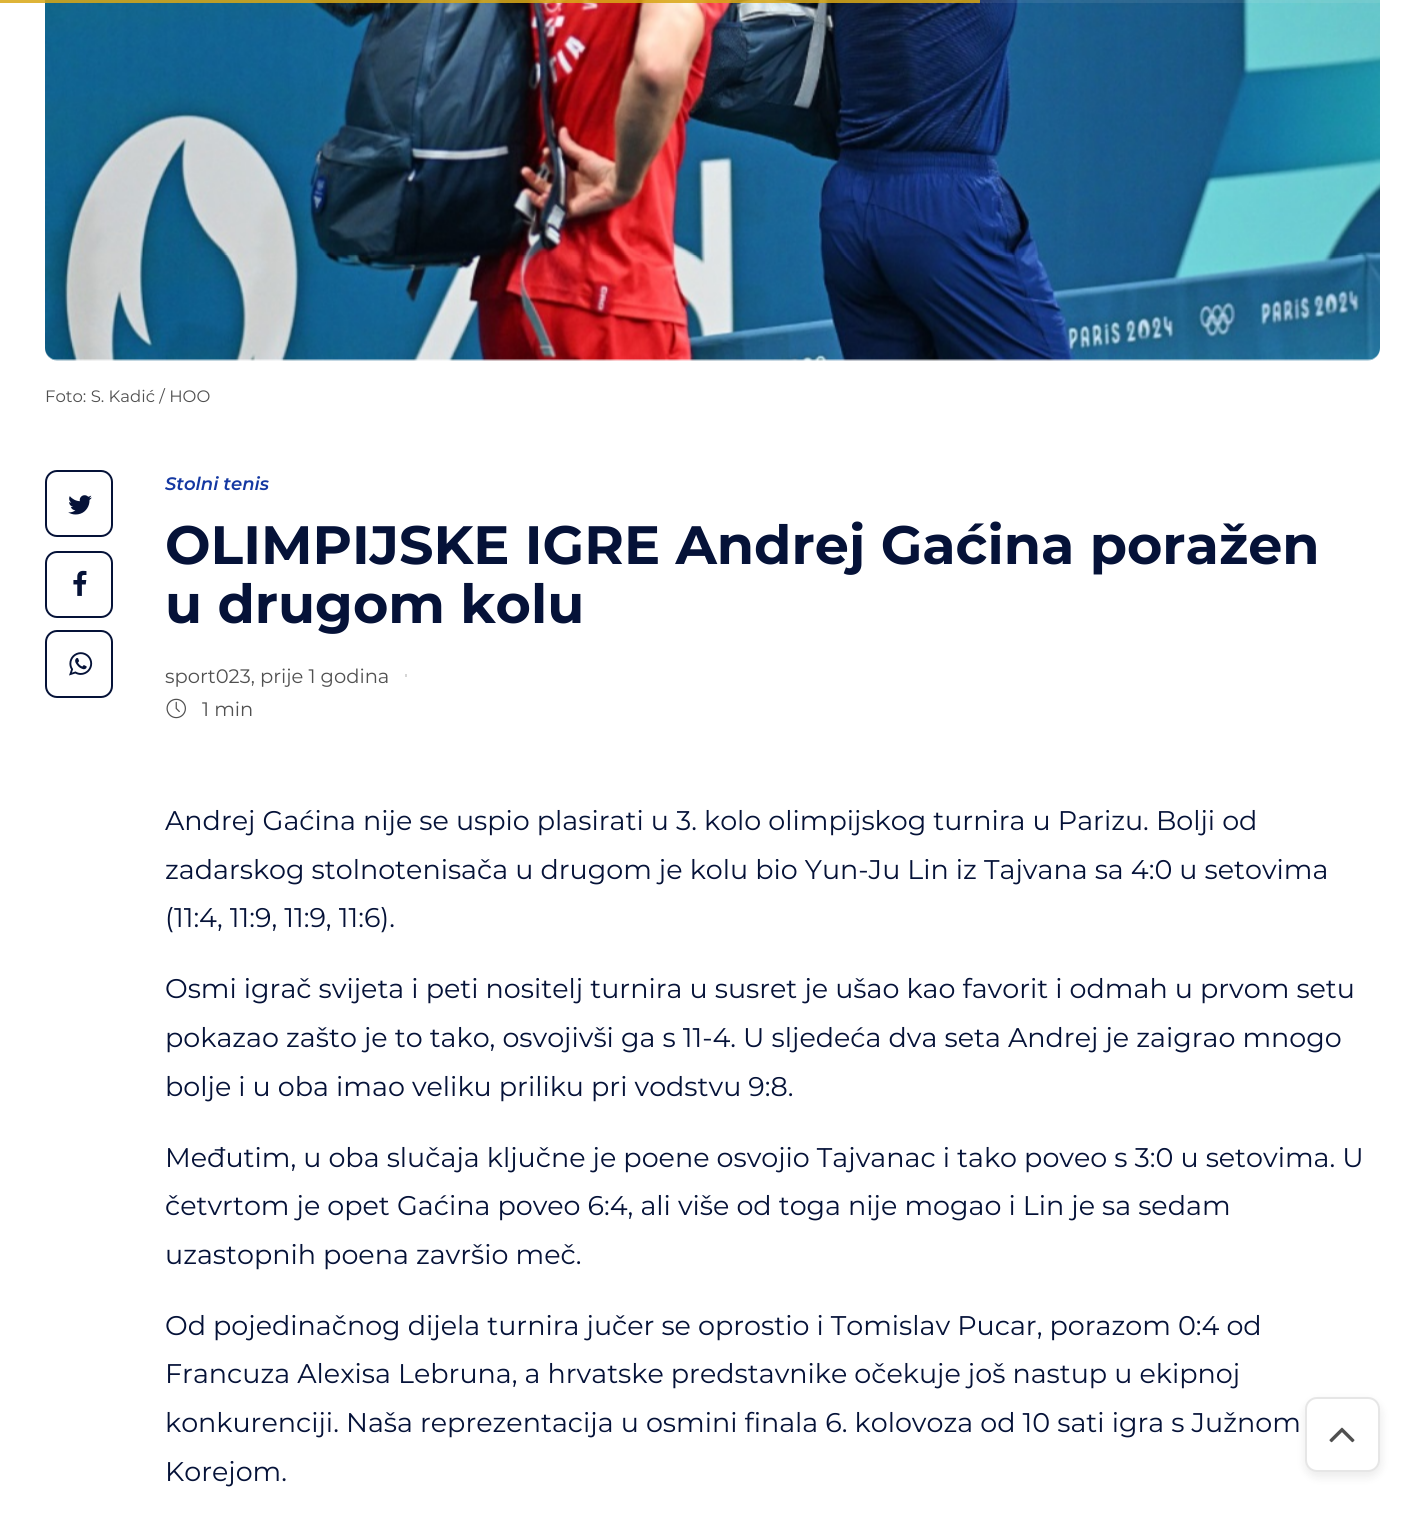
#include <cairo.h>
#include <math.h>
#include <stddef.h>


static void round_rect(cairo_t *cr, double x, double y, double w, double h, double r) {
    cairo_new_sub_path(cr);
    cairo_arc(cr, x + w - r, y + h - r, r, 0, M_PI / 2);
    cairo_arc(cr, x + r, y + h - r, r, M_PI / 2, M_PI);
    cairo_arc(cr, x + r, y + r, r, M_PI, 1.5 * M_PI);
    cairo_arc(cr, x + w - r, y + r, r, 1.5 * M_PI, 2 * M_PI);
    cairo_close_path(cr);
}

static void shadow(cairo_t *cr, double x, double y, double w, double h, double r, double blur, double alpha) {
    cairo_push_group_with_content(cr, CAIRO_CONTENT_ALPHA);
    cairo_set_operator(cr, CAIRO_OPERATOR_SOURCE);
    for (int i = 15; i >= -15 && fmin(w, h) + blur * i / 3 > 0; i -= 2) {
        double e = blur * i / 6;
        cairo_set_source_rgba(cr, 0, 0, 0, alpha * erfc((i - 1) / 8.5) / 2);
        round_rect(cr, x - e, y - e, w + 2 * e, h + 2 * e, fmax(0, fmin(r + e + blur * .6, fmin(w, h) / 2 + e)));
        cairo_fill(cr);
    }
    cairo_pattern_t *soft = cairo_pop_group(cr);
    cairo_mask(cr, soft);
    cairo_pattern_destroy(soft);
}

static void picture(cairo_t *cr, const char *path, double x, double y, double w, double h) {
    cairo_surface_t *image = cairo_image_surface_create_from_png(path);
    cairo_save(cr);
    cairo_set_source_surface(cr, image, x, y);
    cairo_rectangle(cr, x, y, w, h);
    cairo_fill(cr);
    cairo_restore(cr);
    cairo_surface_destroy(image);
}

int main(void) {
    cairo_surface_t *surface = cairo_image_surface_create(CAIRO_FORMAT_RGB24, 1425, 1516);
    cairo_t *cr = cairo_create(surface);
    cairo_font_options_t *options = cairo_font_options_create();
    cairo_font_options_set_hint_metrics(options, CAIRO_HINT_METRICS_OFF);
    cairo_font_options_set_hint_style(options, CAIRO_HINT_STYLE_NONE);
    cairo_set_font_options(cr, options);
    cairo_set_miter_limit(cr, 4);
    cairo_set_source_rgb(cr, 1, 1, 1);
    cairo_paint(cr);
    picture(cr, "img1.png", 45, 0, 1335, 361);
    cairo_set_source_rgba(cr, 0.867, 0.867, 0.867, 0.05);
    cairo_rectangle(cr, 45, 0, 1335, 3);
    cairo_fill(cr);
    cairo_rectangle(cr, 45, 0, 1335, 3);
    cairo_fill(cr);
    cairo_set_source_rgba(cr, 0.851, 0.655, 0.078, 0.84);
    cairo_rectangle(cr, 0, 0, 980, 3);
    cairo_fill(cr);
    cairo_select_font_face(cr, "Montserrat", CAIRO_FONT_SLANT_NORMAL, CAIRO_FONT_WEIGHT_NORMAL);
    cairo_set_font_size(cr, 16.5);
    cairo_set_source_rgb(cr, 0.314, 0.314, 0.314);
    cairo_move_to(cr, 45, 402);
    cairo_show_text(cr, "Foto: S. Kadić / HOO");
    round_rect(cr, 46, 471, 66, 65, 11);
    cairo_set_source_rgb(cr, 0.02, 0.071, 0.22);
    cairo_stroke(cr);
    picture(cr, "img2.png", 68, 495, 24, 20);
    round_rect(cr, 46, 552, 66, 65, 11);
    cairo_stroke(cr);
    picture(cr, "img3.png", 73, 570, 14, 26);
    round_rect(cr, 46, 631, 66, 66, 11);
    cairo_stroke(cr);
    picture(cr, "img4.png", 69, 652, 24, 24);
    cairo_select_font_face(cr, "Montserrat SemiBold", CAIRO_FONT_SLANT_ITALIC, CAIRO_FONT_WEIGHT_NORMAL);
    cairo_set_font_size(cr, 18);
    cairo_set_source_rgb(cr, 0.082, 0.22, 0.635);
    cairo_move_to(cr, 165, 490);
    cairo_show_text(cr, "Stolni tenis");
    cairo_select_font_face(cr, "Montserrat", CAIRO_FONT_SLANT_NORMAL, CAIRO_FONT_WEIGHT_BOLD);
    cairo_set_font_size(cr, 54);
    cairo_set_source_rgb(cr, 0.02, 0.071, 0.22);
    cairo_move_to(cr, 165, 564);
    cairo_show_text(cr, "OLIMPIJSKE IGRE Andrej Gaćina poražen");
    cairo_move_to(cr, 165, 623);
    cairo_show_text(cr, "u drugom kolu");
    cairo_select_font_face(cr, "Montserrat", CAIRO_FONT_SLANT_NORMAL, CAIRO_FONT_WEIGHT_NORMAL);
    cairo_set_font_size(cr, 19.5);
    cairo_set_source_rgb(cr, 0.314, 0.314, 0.314);
    cairo_move_to(cr, 165, 683);
    cairo_show_text(cr, "sport023, prije 1 godina");
    cairo_set_source_rgb(cr, 0.839, 0.839, 0.839);
    cairo_rectangle(cr, 405, 674, 2, 3);
    cairo_fill(cr);
    picture(cr, "img5.png", 166, 698, 20, 21);
    cairo_set_source_rgb(cr, 0.314, 0.314, 0.314);
    cairo_move_to(cr, 202, 716);
    cairo_show_text(cr, "1 min");
    cairo_set_font_size(cr, 27);
    cairo_set_source_rgb(cr, 0.02, 0.071, 0.22);
    cairo_move_to(cr, 165, 830);
    cairo_show_text(cr, "Andrej Gaćina nije se uspio plasirati u 3. kolo olimpijskog turnira u Parizu. Bolji od");
    cairo_move_to(cr, 165, 879);
    cairo_show_text(cr, "zadarskog stolnotenisača u drugom je kolu bio Yun-Ju Lin iz Tajvana sa 4:0 u setovima");
    cairo_move_to(cr, 165, 927);
    cairo_show_text(cr, "(11:4, 11:9, 11:9, 11:6).");
    cairo_move_to(cr, 165, 998);
    cairo_show_text(cr, "Osmi igrač svijeta i peti nositelj turnira u susret je ušao kao favorit i odmah u prvom setu");
    cairo_move_to(cr, 165, 1047);
    cairo_show_text(cr, "pokazao zašto je to tako, osvojivši ga s 11-4. U sljedeća dva seta Andrej je zaigrao mnogo");
    cairo_move_to(cr, 165, 1096);
    cairo_show_text(cr, "bolje i u oba imao veliku priliku pri vodstvu 9:8.");
    cairo_move_to(cr, 165, 1167);
    cairo_show_text(cr, "Međutim, u oba slučaja ključne je poene osvojio Tajvanac i tako poveo s 3:0 u setovima. U");
    cairo_move_to(cr, 165, 1215);
    cairo_show_text(cr, "četvrtom je opet Gaćina poveo 6:4, ali više od toga nije mogao i Lin je sa sedam");
    cairo_move_to(cr, 165, 1264);
    cairo_show_text(cr, "uzastopnih poena završio meč.");
    cairo_move_to(cr, 165, 1335);
    cairo_show_text(cr, "Od pojedinačnog dijela turnira jučer se oprostio i Tomislav Pucar, porazom 0:4 od");
    cairo_move_to(cr, 165, 1383);
    cairo_show_text(cr, "Francuza Alexisa Lebruna, a hrvatske predstavnike očekuje još nastup u ekipnoj");
    cairo_move_to(cr, 165, 1432);
    cairo_show_text(cr, "konkurenciji. Naša reprezentacija u osmini finala 6. kolovoza od 10 sati igra s Južnom");
    cairo_move_to(cr, 165, 1481);
    cairo_show_text(cr, "Korejom.");
    cairo_set_source_rgb(cr, 0, 0, 0);
    shadow(cr, 1304, 1400, 78, 78, 14, 4.5, 0.07);
    cairo_set_source_rgb(cr, 1, 1, 1);
    round_rect(cr, 1305, 1397, 75, 75, 12);
    cairo_fill(cr);
    round_rect(cr, 1306, 1398, 73, 73, 11);
    cairo_set_source_rgba(cr, 0, 0, 0, 0.1);
    cairo_stroke(cr);
    picture(cr, "img6.png", 1329, 1427, 26, 16);
    cairo_surface_write_to_png(surface, "page.png");
    cairo_font_options_destroy(options);
    cairo_destroy(cr);
    cairo_surface_destroy(surface);
    return 0;
}
